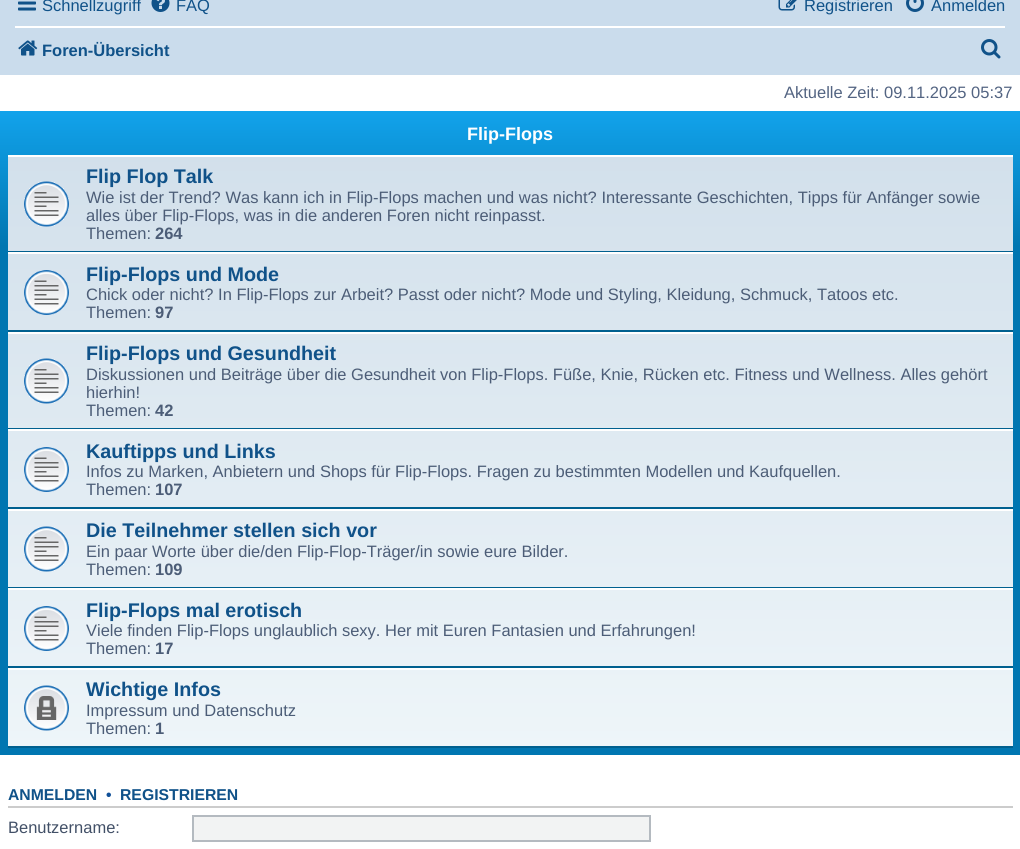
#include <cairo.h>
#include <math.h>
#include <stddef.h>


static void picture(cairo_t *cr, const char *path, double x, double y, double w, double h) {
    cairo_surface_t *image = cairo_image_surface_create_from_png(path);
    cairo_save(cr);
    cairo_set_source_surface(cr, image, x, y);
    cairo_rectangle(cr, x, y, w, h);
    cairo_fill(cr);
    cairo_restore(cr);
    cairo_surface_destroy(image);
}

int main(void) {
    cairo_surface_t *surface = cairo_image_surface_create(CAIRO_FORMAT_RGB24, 1020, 849);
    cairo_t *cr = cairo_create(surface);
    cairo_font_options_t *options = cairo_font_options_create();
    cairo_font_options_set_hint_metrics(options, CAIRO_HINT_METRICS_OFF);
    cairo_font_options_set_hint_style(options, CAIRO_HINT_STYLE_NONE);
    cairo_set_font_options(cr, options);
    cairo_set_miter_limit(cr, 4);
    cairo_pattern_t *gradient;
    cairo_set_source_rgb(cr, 1, 1, 1);
    cairo_paint(cr);
    cairo_set_source_rgb(cr, 0.792, 0.863, 0.922);
    cairo_rectangle(cr, 0, 0, 1020, 75);
    cairo_fill(cr);
    picture(cr, "img1.png", 18, 1, 18, 10);
    cairo_select_font_face(cr, "Liberation Sans", CAIRO_FONT_SLANT_NORMAL, CAIRO_FONT_WEIGHT_NORMAL);
    cairo_set_font_size(cr, 16.5);
    cairo_set_source_rgb(cr, 0.063, 0.322, 0.537);
    cairo_move_to(cr, 42, 11);
    cairo_show_text(cr, "Schnellzugriff");
    picture(cr, "img2.png", 151, 0, 19, 12);
    cairo_move_to(cr, 176, 11);
    cairo_show_text(cr, "FAQ");
    picture(cr, "img3.png", 778, 0, 19, 11);
    cairo_move_to(cr, 804, 11);
    cairo_show_text(cr, "Registrieren");
    picture(cr, "img4.png", 906, 0, 18, 12);
    cairo_move_to(cr, 931, 11);
    cairo_show_text(cr, "Anmelden");
    cairo_set_source_rgb(cr, 1, 1, 1);
    cairo_rectangle(cr, 15, 26, 990, 2);
    cairo_fill(cr);
    picture(cr, "img5.png", 18, 40, 20, 16);
    cairo_select_font_face(cr, "Liberation Sans", CAIRO_FONT_SLANT_NORMAL, CAIRO_FONT_WEIGHT_BOLD);
    cairo_set_source_rgb(cr, 0.063, 0.322, 0.537);
    cairo_move_to(cr, 42, 56);
    cairo_show_text(cr, "Foren-Übersicht");
    picture(cr, "img6.png", 981, 39, 20, 20);
    cairo_select_font_face(cr, "Liberation Sans", CAIRO_FONT_SLANT_NORMAL, CAIRO_FONT_WEIGHT_NORMAL);
    cairo_set_source_rgb(cr, 0.325, 0.392, 0.51);
    cairo_move_to(cr, 784, 98);
    cairo_show_text(cr, "Aktuelle Zeit: 09.11.2025 05:37");
    gradient = cairo_pattern_create_linear(510, 111, 510, 755);
    cairo_pattern_add_color_stop_rgba(gradient, 0, 0.416, 0.808, 1, 1);
    cairo_pattern_add_color_stop_rgba(gradient, 0, 0.071, 0.639, 0.922, 1);
    cairo_pattern_add_color_stop_rgba(gradient, 0.21, 0, 0.463, 0.694, 1);
    cairo_pattern_add_color_stop_rgba(gradient, 1, 0, 0.463, 0.694, 1);
    cairo_set_source(cr, gradient);
    cairo_pattern_destroy(gradient);
    cairo_rectangle(cr, 0, 111, 1020, 644);
    cairo_fill(cr);
    cairo_select_font_face(cr, "Liberation Sans", CAIRO_FONT_SLANT_NORMAL, CAIRO_FONT_WEIGHT_BOLD);
    cairo_set_font_size(cr, 18);
    cairo_set_source_rgb(cr, 1, 1, 1);
    cairo_move_to(cr, 467, 140);
    cairo_show_text(cr, "Flip-Flops");
    gradient = cairo_pattern_create_linear(510, 154, 510, 747);
    cairo_pattern_add_color_stop_rgba(gradient, 0, 0.824, 0.878, 0.922, 1);
    cairo_pattern_add_color_stop_rgba(gradient, 1, 0.933, 0.961, 0.976, 1);
    cairo_set_source(cr, gradient);
    cairo_pattern_destroy(gradient);
    cairo_rectangle(cr, 8, 157, 1005, 589);
    cairo_fill(cr);
    cairo_set_source_rgb(cr, 1, 1, 1);
    cairo_rectangle(cr, 8, 155, 1005, 2);
    cairo_fill(cr);
    cairo_set_source_rgb(cr, 0, 0.376, 0.561);
    cairo_rectangle(cr, 8, 251, 1005, 1);
    cairo_fill(cr);
    picture(cr, "img7.png", 24, 181, 45, 46);
    cairo_set_font_size(cr, 19.75);
    cairo_set_source_rgb(cr, 0.063, 0.322, 0.537);
    cairo_move_to(cr, 86, 183);
    cairo_show_text(cr, "Flip Flop Talk");
    cairo_select_font_face(cr, "Liberation Sans", CAIRO_FONT_SLANT_NORMAL, CAIRO_FONT_WEIGHT_NORMAL);
    cairo_set_font_size(cr, 16.5);
    cairo_set_source_rgb(cr, 0.298, 0.365, 0.467);
    cairo_move_to(cr, 86, 203);
    cairo_show_text(cr, "Wie ist der Trend? Was kann ich in Flip-Flops machen und was nicht? Interessante Geschichten, Tipps für Anfänger sowie");
    cairo_move_to(cr, 86, 221);
    cairo_show_text(cr, "alles über Flip-Flops, was in die anderen Foren nicht reinpasst.");
    cairo_move_to(cr, 86, 239);
    cairo_show_text(cr, "Themen:");
    cairo_select_font_face(cr, "Liberation Sans", CAIRO_FONT_SLANT_NORMAL, CAIRO_FONT_WEIGHT_BOLD);
    cairo_move_to(cr, 155, 239);
    cairo_show_text(cr, "264");
    cairo_set_source_rgb(cr, 1, 1, 1);
    cairo_rectangle(cr, 8, 252, 1005, 2);
    cairo_fill(cr);
    cairo_set_source_rgb(cr, 0, 0.376, 0.561);
    cairo_rectangle(cr, 8, 330, 1005, 2);
    cairo_fill(cr);
    picture(cr, "img8.png", 24, 270, 45, 45);
    cairo_set_font_size(cr, 19.75);
    cairo_set_source_rgb(cr, 0.063, 0.322, 0.537);
    cairo_move_to(cr, 86, 281);
    cairo_show_text(cr, "Flip-Flops und Mode");
    cairo_select_font_face(cr, "Liberation Sans", CAIRO_FONT_SLANT_NORMAL, CAIRO_FONT_WEIGHT_NORMAL);
    cairo_set_font_size(cr, 16.5);
    cairo_set_source_rgb(cr, 0.298, 0.365, 0.467);
    cairo_move_to(cr, 86, 300);
    cairo_show_text(cr, "Chick oder nicht? In Flip-Flops zur Arbeit? Passt oder nicht? Mode und Styling, Kleidung, Schmuck, Tatoos etc.");
    cairo_move_to(cr, 86, 318);
    cairo_show_text(cr, "Themen:");
    cairo_select_font_face(cr, "Liberation Sans", CAIRO_FONT_SLANT_NORMAL, CAIRO_FONT_WEIGHT_BOLD);
    cairo_move_to(cr, 155, 318);
    cairo_show_text(cr, "97");
    cairo_set_source_rgb(cr, 1, 1, 1);
    cairo_rectangle(cr, 8, 332, 1005, 2);
    cairo_fill(cr);
    cairo_set_source_rgb(cr, 0, 0.376, 0.561);
    cairo_rectangle(cr, 8, 428, 1005, 1);
    cairo_fill(cr);
    picture(cr, "img9.png", 24, 358, 45, 46);
    cairo_set_font_size(cr, 19.75);
    cairo_set_source_rgb(cr, 0.063, 0.322, 0.537);
    cairo_move_to(cr, 86, 360);
    cairo_show_text(cr, "Flip-Flops und Gesundheit");
    cairo_select_font_face(cr, "Liberation Sans", CAIRO_FONT_SLANT_NORMAL, CAIRO_FONT_WEIGHT_NORMAL);
    cairo_set_font_size(cr, 16.5);
    cairo_set_source_rgb(cr, 0.298, 0.365, 0.467);
    cairo_move_to(cr, 86, 380);
    cairo_show_text(cr, "Diskussionen und Beiträge über die Gesundheit von Flip-Flops. Füße, Knie, Rücken etc. Fitness und Wellness. Alles gehört");
    cairo_move_to(cr, 86, 398);
    cairo_show_text(cr, "hierhin!");
    cairo_move_to(cr, 86, 416);
    cairo_show_text(cr, "Themen:");
    cairo_select_font_face(cr, "Liberation Sans", CAIRO_FONT_SLANT_NORMAL, CAIRO_FONT_WEIGHT_BOLD);
    cairo_move_to(cr, 155, 416);
    cairo_show_text(cr, "42");
    cairo_set_source_rgb(cr, 1, 1, 1);
    cairo_rectangle(cr, 8, 429, 1005, 2);
    cairo_fill(cr);
    cairo_set_source_rgb(cr, 0, 0.376, 0.561);
    cairo_rectangle(cr, 8, 507, 1005, 2);
    cairo_fill(cr);
    picture(cr, "img10.png", 24, 447, 45, 45);
    cairo_set_font_size(cr, 19.75);
    cairo_set_source_rgb(cr, 0.063, 0.322, 0.537);
    cairo_move_to(cr, 86, 458);
    cairo_show_text(cr, "Kauftipps und Links");
    cairo_select_font_face(cr, "Liberation Sans", CAIRO_FONT_SLANT_NORMAL, CAIRO_FONT_WEIGHT_NORMAL);
    cairo_set_font_size(cr, 16.5);
    cairo_set_source_rgb(cr, 0.298, 0.365, 0.467);
    cairo_move_to(cr, 86, 477);
    cairo_show_text(cr, "Infos zu Marken, Anbietern und Shops für Flip-Flops. Fragen zu bestimmten Modellen und Kaufquellen.");
    cairo_move_to(cr, 86, 495);
    cairo_show_text(cr, "Themen:");
    cairo_select_font_face(cr, "Liberation Sans", CAIRO_FONT_SLANT_NORMAL, CAIRO_FONT_WEIGHT_BOLD);
    cairo_move_to(cr, 155, 495);
    cairo_show_text(cr, "107");
    cairo_set_source_rgb(cr, 1, 1, 1);
    cairo_rectangle(cr, 8, 509, 1005, 2);
    cairo_fill(cr);
    cairo_set_source_rgb(cr, 0, 0.376, 0.561);
    cairo_rectangle(cr, 8, 587, 1005, 1);
    cairo_fill(cr);
    picture(cr, "img11.png", 24, 526, 45, 46);
    cairo_set_font_size(cr, 19.75);
    cairo_set_source_rgb(cr, 0.063, 0.322, 0.537);
    cairo_move_to(cr, 86, 537);
    cairo_show_text(cr, "Die Teilnehmer stellen sich vor");
    cairo_select_font_face(cr, "Liberation Sans", CAIRO_FONT_SLANT_NORMAL, CAIRO_FONT_WEIGHT_NORMAL);
    cairo_set_font_size(cr, 16.5);
    cairo_set_source_rgb(cr, 0.298, 0.365, 0.467);
    cairo_move_to(cr, 86, 557);
    cairo_show_text(cr, "Ein paar Worte über die/den Flip-Flop-Träger/in sowie eure Bilder.");
    cairo_move_to(cr, 86, 575);
    cairo_show_text(cr, "Themen:");
    cairo_select_font_face(cr, "Liberation Sans", CAIRO_FONT_SLANT_NORMAL, CAIRO_FONT_WEIGHT_BOLD);
    cairo_move_to(cr, 155, 575);
    cairo_show_text(cr, "109");
    cairo_set_source_rgb(cr, 1, 1, 1);
    cairo_rectangle(cr, 8, 588, 1005, 2);
    cairo_fill(cr);
    cairo_set_source_rgb(cr, 0, 0.376, 0.561);
    cairo_rectangle(cr, 8, 666, 1005, 2);
    cairo_fill(cr);
    picture(cr, "img12.png", 24, 606, 45, 45);
    cairo_set_font_size(cr, 19.75);
    cairo_set_source_rgb(cr, 0.063, 0.322, 0.537);
    cairo_move_to(cr, 86, 617);
    cairo_show_text(cr, "Flip-Flops mal erotisch");
    cairo_select_font_face(cr, "Liberation Sans", CAIRO_FONT_SLANT_NORMAL, CAIRO_FONT_WEIGHT_NORMAL);
    cairo_set_font_size(cr, 16.5);
    cairo_set_source_rgb(cr, 0.298, 0.365, 0.467);
    cairo_move_to(cr, 86, 636);
    cairo_show_text(cr, "Viele finden Flip-Flops unglaublich sexy. Her mit Euren Fantasien und Erfahrungen!");
    cairo_move_to(cr, 86, 654);
    cairo_show_text(cr, "Themen:");
    cairo_select_font_face(cr, "Liberation Sans", CAIRO_FONT_SLANT_NORMAL, CAIRO_FONT_WEIGHT_BOLD);
    cairo_move_to(cr, 155, 654);
    cairo_show_text(cr, "17");
    cairo_set_source_rgb(cr, 1, 1, 1);
    cairo_rectangle(cr, 8, 668, 1005, 2);
    cairo_fill(cr);
    cairo_set_source_rgb(cr, 0, 0.376, 0.561);
    cairo_rectangle(cr, 8, 746, 1005, 2);
    cairo_fill(cr);
    picture(cr, "img13.png", 24, 685, 45, 46);
    cairo_set_font_size(cr, 19.75);
    cairo_set_source_rgb(cr, 0.063, 0.322, 0.537);
    cairo_move_to(cr, 86, 696);
    cairo_show_text(cr, "Wichtige Infos");
    cairo_select_font_face(cr, "Liberation Sans", CAIRO_FONT_SLANT_NORMAL, CAIRO_FONT_WEIGHT_NORMAL);
    cairo_set_font_size(cr, 16.5);
    cairo_set_source_rgb(cr, 0.298, 0.365, 0.467);
    cairo_move_to(cr, 86, 716);
    cairo_show_text(cr, "Impressum und Datenschutz");
    cairo_move_to(cr, 86, 734);
    cairo_show_text(cr, "Themen:");
    cairo_select_font_face(cr, "Liberation Sans", CAIRO_FONT_SLANT_NORMAL, CAIRO_FONT_WEIGHT_BOLD);
    cairo_move_to(cr, 155, 734);
    cairo_show_text(cr, "1");
    cairo_set_source_rgb(cr, 0.8, 0.8, 0.8);
    cairo_rectangle(cr, 8, 806, 1005, 2);
    cairo_fill(cr);
    cairo_set_font_size(cr, 15.75);
    cairo_set_source_rgb(cr, 0.063, 0.322, 0.537);
    cairo_move_to(cr, 8, 800);
    cairo_show_text(cr, "ANMELDEN");
    cairo_set_source_rgb(cr, 0.067, 0.314, 0.596);
    cairo_move_to(cr, 106, 800);
    cairo_show_text(cr, "•");
    cairo_set_source_rgb(cr, 0.063, 0.322, 0.537);
    cairo_move_to(cr, 120, 800);
    cairo_show_text(cr, "REGISTRIEREN");
    cairo_select_font_face(cr, "Liberation Sans", CAIRO_FONT_SLANT_NORMAL, CAIRO_FONT_WEIGHT_NORMAL);
    cairo_set_font_size(cr, 16.5);
    cairo_set_source_rgb(cr, 0.259, 0.314, 0.404);
    cairo_move_to(cr, 8, 833);
    cairo_show_text(cr, "Benutzername:");
    cairo_set_source_rgb(cr, 0.949, 0.953, 0.953);
    cairo_rectangle(cr, 193, 816, 457, 25);
    cairo_fill_preserve(cr);
    cairo_set_source_rgb(cr, 0.706, 0.729, 0.753);
    cairo_stroke(cr);
    cairo_surface_write_to_png(surface, "page.png");
    cairo_font_options_destroy(options);
    cairo_destroy(cr);
    cairo_surface_destroy(surface);
    return 0;
}
